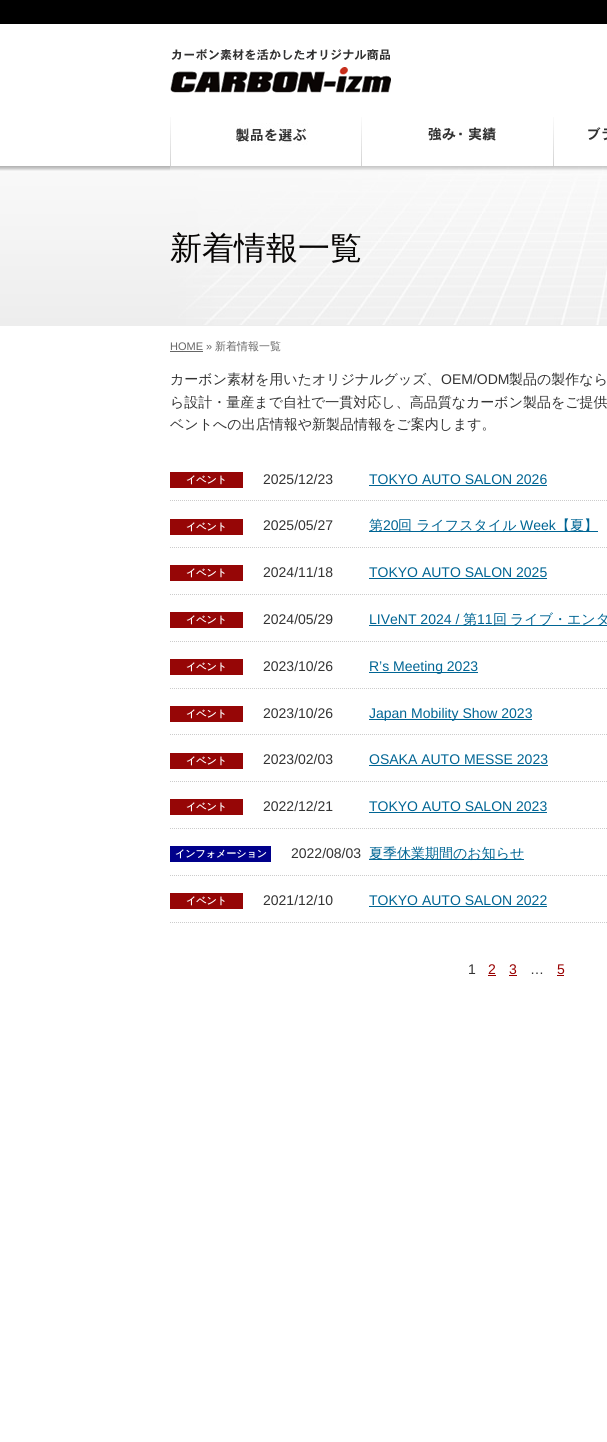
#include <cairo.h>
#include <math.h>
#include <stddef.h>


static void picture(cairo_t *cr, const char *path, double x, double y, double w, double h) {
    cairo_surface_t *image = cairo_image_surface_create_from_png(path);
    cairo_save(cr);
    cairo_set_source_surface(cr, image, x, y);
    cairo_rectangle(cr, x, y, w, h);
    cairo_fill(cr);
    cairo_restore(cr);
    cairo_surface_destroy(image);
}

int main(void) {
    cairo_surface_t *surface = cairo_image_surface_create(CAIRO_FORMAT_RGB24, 607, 1442);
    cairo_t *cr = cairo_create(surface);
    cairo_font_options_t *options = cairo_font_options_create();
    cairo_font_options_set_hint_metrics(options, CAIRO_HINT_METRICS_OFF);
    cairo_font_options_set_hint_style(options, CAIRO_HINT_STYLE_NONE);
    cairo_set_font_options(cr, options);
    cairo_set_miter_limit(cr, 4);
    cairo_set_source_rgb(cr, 1, 1, 1);
    cairo_paint(cr);
    cairo_set_source_rgb(cr, 0, 0, 0);
    cairo_rectangle(cr, 0, 0, 607, 24);
    cairo_fill(cr);
    picture(cr, "img1.png", 170, 48, 221, 45);
    picture(cr, "img7.png", 0, 166, 607, 160);
    picture(cr, "img8.png", 170, 166, 437, 159);
    picture(cr, "img2.png", 0, 166, 607, 4);
    picture(cr, "img3.png", 170, 117, 384, 49);
    picture(cr, "img4.png", 236, 123, 72, 22);
    picture(cr, "img5.png", 428, 127, 68, 14);
    picture(cr, "img6.png", 588, 127, 19, 14);
    cairo_select_font_face(cr, "WenQuanYi Zen Hei Medium", CAIRO_FONT_SLANT_NORMAL, CAIRO_FONT_WEIGHT_NORMAL);
    cairo_set_font_size(cr, 32);
    cairo_set_source_rgb(cr, 0.031, 0.02, 0.016);
    cairo_move_to(cr, 170, 259);
    cairo_show_text(cr, "新着情報一覧");
    cairo_select_font_face(cr, "Liberation Sans", CAIRO_FONT_SLANT_NORMAL, CAIRO_FONT_WEIGHT_NORMAL);
    cairo_set_font_size(cr, 11);
    cairo_set_source_rgb(cr, 0.4, 0.4, 0.4);
    cairo_move_to(cr, 170, 350);
    cairo_show_text(cr, "HOME »");
    cairo_rectangle(cr, 170, 351, 33, 1);
    cairo_fill(cr);
    cairo_select_font_face(cr, "WenQuanYi Zen Hei Medium", CAIRO_FONT_SLANT_NORMAL, CAIRO_FONT_WEIGHT_NORMAL);
    cairo_move_to(cr, 215, 350);
    cairo_show_text(cr, "新着情報一覧");
    cairo_set_font_size(cr, 14);
    cairo_set_source_rgb(cr, 0.2, 0.2, 0.2);
    cairo_move_to(cr, 170, 384);
    cairo_show_text(cr, "カーボン素材を用いたオリジナルグッズ、");
    cairo_select_font_face(cr, "Liberation Sans", CAIRO_FONT_SLANT_NORMAL, CAIRO_FONT_WEIGHT_NORMAL);
    cairo_move_to(cr, 441, 384);
    cairo_show_text(cr, "OEM/ODM");
    cairo_select_font_face(cr, "WenQuanYi Zen Hei Medium", CAIRO_FONT_SLANT_NORMAL, CAIRO_FONT_WEIGHT_NORMAL);
    cairo_move_to(cr, 509, 384);
    cairo_show_text(cr, "製品の製作なら");
    cairo_move_to(cr, 170, 407);
    cairo_show_text(cr, "ら設計・量産まで自社で一貫対応し、高品質なカーボン製品をご提供");
    cairo_move_to(cr, 170, 429);
    cairo_show_text(cr, "ベントへの出店情報や新製品情報をご案内します。");
    cairo_set_source_rgb(cr, 0.588, 0.027, 0.024);
    cairo_rectangle(cr, 170, 472, 73, 16);
    cairo_fill(cr);
    cairo_select_font_face(cr, "WenQuanYi Zen Hei", CAIRO_FONT_SLANT_NORMAL, CAIRO_FONT_WEIGHT_BOLD);
    cairo_set_font_size(cr, 10);
    cairo_set_source_rgb(cr, 1, 1, 1);
    cairo_move_to(cr, 186, 483);
    cairo_show_text(cr, "イベント");
    cairo_select_font_face(cr, "Liberation Sans", CAIRO_FONT_SLANT_NORMAL, CAIRO_FONT_WEIGHT_NORMAL);
    cairo_set_font_size(cr, 14);
    cairo_set_source_rgb(cr, 0.2, 0.2, 0.2);
    cairo_move_to(cr, 263, 484);
    cairo_show_text(cr, "2025/12/23");
    cairo_new_path(cr);
    cairo_move_to(cr, 170, 500.5);
    cairo_line_to(cr, 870, 500.5);
    cairo_set_source_rgb(cr, 0.8, 0.8, 0.8);
    cairo_set_line_width(cr, 1);
    cairo_set_dash(cr, (double[]){1, 1}, 2, 0);
    cairo_stroke(cr);
    cairo_set_source_rgb(cr, 0, 0.396, 0.58);
    cairo_move_to(cr, 369, 484);
    cairo_show_text(cr, "TOKYO AUTO SALON 2026");
    cairo_rectangle(cr, 369, 485, 178, 1);
    cairo_fill(cr);
    cairo_set_source_rgb(cr, 0.588, 0.027, 0.024);
    cairo_rectangle(cr, 170, 519, 73, 16);
    cairo_fill(cr);
    cairo_select_font_face(cr, "WenQuanYi Zen Hei", CAIRO_FONT_SLANT_NORMAL, CAIRO_FONT_WEIGHT_BOLD);
    cairo_set_font_size(cr, 10);
    cairo_set_source_rgb(cr, 1, 1, 1);
    cairo_move_to(cr, 186, 530);
    cairo_show_text(cr, "イベント");
    cairo_select_font_face(cr, "Liberation Sans", CAIRO_FONT_SLANT_NORMAL, CAIRO_FONT_WEIGHT_NORMAL);
    cairo_set_font_size(cr, 14);
    cairo_set_source_rgb(cr, 0.2, 0.2, 0.2);
    cairo_move_to(cr, 263, 530);
    cairo_show_text(cr, "2025/05/27");
    cairo_new_path(cr);
    cairo_move_to(cr, 170, 547.5);
    cairo_line_to(cr, 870, 547.5);
    cairo_set_source_rgb(cr, 0.8, 0.8, 0.8);
    cairo_stroke(cr);
    cairo_set_source_rgb(cr, 0, 0.396, 0.58);
    cairo_rectangle(cr, 369, 531, 229, 1);
    cairo_fill(cr);
    cairo_select_font_face(cr, "WenQuanYi Zen Hei Medium", CAIRO_FONT_SLANT_NORMAL, CAIRO_FONT_WEIGHT_NORMAL);
    cairo_move_to(cr, 369, 530);
    cairo_show_text(cr, "第");
    cairo_select_font_face(cr, "Liberation Sans", CAIRO_FONT_SLANT_NORMAL, CAIRO_FONT_WEIGHT_NORMAL);
    cairo_move_to(cr, 383, 530);
    cairo_show_text(cr, "20");
    cairo_select_font_face(cr, "WenQuanYi Zen Hei Medium", CAIRO_FONT_SLANT_NORMAL, CAIRO_FONT_WEIGHT_NORMAL);
    cairo_move_to(cr, 398, 530);
    cairo_show_text(cr, "回 ライフスタイル");
    cairo_select_font_face(cr, "Liberation Sans", CAIRO_FONT_SLANT_NORMAL, CAIRO_FONT_WEIGHT_NORMAL);
    cairo_move_to(cr, 520, 530);
    cairo_show_text(cr, "Week");
    cairo_select_font_face(cr, "WenQuanYi Zen Hei Medium", CAIRO_FONT_SLANT_NORMAL, CAIRO_FONT_WEIGHT_NORMAL);
    cairo_move_to(cr, 556, 530);
    cairo_show_text(cr, "【夏】");
    cairo_set_source_rgb(cr, 0.588, 0.027, 0.024);
    cairo_rectangle(cr, 170, 565, 73, 16);
    cairo_fill(cr);
    cairo_select_font_face(cr, "WenQuanYi Zen Hei", CAIRO_FONT_SLANT_NORMAL, CAIRO_FONT_WEIGHT_BOLD);
    cairo_set_font_size(cr, 10);
    cairo_set_source_rgb(cr, 1, 1, 1);
    cairo_move_to(cr, 186, 576);
    cairo_show_text(cr, "イベント");
    cairo_select_font_face(cr, "Liberation Sans", CAIRO_FONT_SLANT_NORMAL, CAIRO_FONT_WEIGHT_NORMAL);
    cairo_set_font_size(cr, 14);
    cairo_set_source_rgb(cr, 0.2, 0.2, 0.2);
    cairo_move_to(cr, 263, 577);
    cairo_show_text(cr, "2024/11/18");
    cairo_new_path(cr);
    cairo_move_to(cr, 170, 594.5);
    cairo_line_to(cr, 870, 594.5);
    cairo_set_source_rgb(cr, 0.8, 0.8, 0.8);
    cairo_stroke(cr);
    cairo_set_source_rgb(cr, 0, 0.396, 0.58);
    cairo_move_to(cr, 369, 577);
    cairo_show_text(cr, "TOKYO AUTO SALON 2025");
    cairo_rectangle(cr, 369, 578, 178, 1);
    cairo_fill(cr);
    cairo_set_source_rgb(cr, 0.588, 0.027, 0.024);
    cairo_rectangle(cr, 170, 612, 73, 16);
    cairo_fill(cr);
    cairo_select_font_face(cr, "WenQuanYi Zen Hei", CAIRO_FONT_SLANT_NORMAL, CAIRO_FONT_WEIGHT_BOLD);
    cairo_set_font_size(cr, 10);
    cairo_set_source_rgb(cr, 1, 1, 1);
    cairo_move_to(cr, 186, 623);
    cairo_show_text(cr, "イベント");
    cairo_select_font_face(cr, "Liberation Sans", CAIRO_FONT_SLANT_NORMAL, CAIRO_FONT_WEIGHT_NORMAL);
    cairo_set_font_size(cr, 14);
    cairo_set_source_rgb(cr, 0.2, 0.2, 0.2);
    cairo_move_to(cr, 263, 624);
    cairo_show_text(cr, "2024/05/29");
    cairo_new_path(cr);
    cairo_move_to(cr, 170, 641.5);
    cairo_line_to(cr, 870, 641.5);
    cairo_set_source_rgb(cr, 0.8, 0.8, 0.8);
    cairo_stroke(cr);
    cairo_set_source_rgb(cr, 0, 0.396, 0.58);
    cairo_move_to(cr, 369, 624);
    cairo_show_text(cr, "LIVeNT 2024 /");
    cairo_rectangle(cr, 369, 625, 238, 1);
    cairo_fill(cr);
    cairo_select_font_face(cr, "WenQuanYi Zen Hei Medium", CAIRO_FONT_SLANT_NORMAL, CAIRO_FONT_WEIGHT_NORMAL);
    cairo_move_to(cr, 463, 624);
    cairo_show_text(cr, "第");
    cairo_select_font_face(cr, "Liberation Sans", CAIRO_FONT_SLANT_NORMAL, CAIRO_FONT_WEIGHT_NORMAL);
    cairo_move_to(cr, 477, 624);
    cairo_show_text(cr, "11");
    cairo_select_font_face(cr, "WenQuanYi Zen Hei Medium", CAIRO_FONT_SLANT_NORMAL, CAIRO_FONT_WEIGHT_NORMAL);
    cairo_move_to(cr, 493, 624);
    cairo_show_text(cr, "回");
    cairo_move_to(cr, 510, 624);
    cairo_show_text(cr, "ライブ・エンタ");
    cairo_set_source_rgb(cr, 0.588, 0.027, 0.024);
    cairo_rectangle(cr, 170, 659, 73, 16);
    cairo_fill(cr);
    cairo_select_font_face(cr, "WenQuanYi Zen Hei", CAIRO_FONT_SLANT_NORMAL, CAIRO_FONT_WEIGHT_BOLD);
    cairo_set_font_size(cr, 10);
    cairo_set_source_rgb(cr, 1, 1, 1);
    cairo_move_to(cr, 186, 670);
    cairo_show_text(cr, "イベント");
    cairo_select_font_face(cr, "Liberation Sans", CAIRO_FONT_SLANT_NORMAL, CAIRO_FONT_WEIGHT_NORMAL);
    cairo_set_font_size(cr, 14);
    cairo_set_source_rgb(cr, 0.2, 0.2, 0.2);
    cairo_move_to(cr, 263, 671);
    cairo_show_text(cr, "2023/10/26");
    cairo_new_path(cr);
    cairo_move_to(cr, 170, 688.5);
    cairo_line_to(cr, 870, 688.5);
    cairo_set_source_rgb(cr, 0.8, 0.8, 0.8);
    cairo_stroke(cr);
    cairo_set_source_rgb(cr, 0, 0.396, 0.58);
    cairo_rectangle(cr, 369, 672, 109, 1);
    cairo_fill(cr);
    cairo_move_to(cr, 369, 671);
    cairo_show_text(cr, "R’s Meeting 2023");
    cairo_set_source_rgb(cr, 0.588, 0.027, 0.024);
    cairo_rectangle(cr, 170, 706, 73, 16);
    cairo_fill(cr);
    cairo_select_font_face(cr, "WenQuanYi Zen Hei", CAIRO_FONT_SLANT_NORMAL, CAIRO_FONT_WEIGHT_BOLD);
    cairo_set_font_size(cr, 10);
    cairo_set_source_rgb(cr, 1, 1, 1);
    cairo_move_to(cr, 186, 717);
    cairo_show_text(cr, "イベント");
    cairo_select_font_face(cr, "Liberation Sans", CAIRO_FONT_SLANT_NORMAL, CAIRO_FONT_WEIGHT_NORMAL);
    cairo_set_font_size(cr, 14);
    cairo_set_source_rgb(cr, 0.2, 0.2, 0.2);
    cairo_move_to(cr, 263, 718);
    cairo_show_text(cr, "2023/10/26");
    cairo_new_path(cr);
    cairo_move_to(cr, 170, 734.5);
    cairo_line_to(cr, 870, 734.5);
    cairo_set_source_rgb(cr, 0.8, 0.8, 0.8);
    cairo_stroke(cr);
    cairo_set_source_rgb(cr, 0, 0.396, 0.58);
    cairo_rectangle(cr, 369, 719, 163, 1);
    cairo_fill(cr);
    cairo_move_to(cr, 369, 718);
    cairo_show_text(cr, "Japan Mobility Show 2023");
    cairo_set_source_rgb(cr, 0.588, 0.027, 0.024);
    cairo_rectangle(cr, 170, 753, 73, 16);
    cairo_fill(cr);
    cairo_select_font_face(cr, "WenQuanYi Zen Hei", CAIRO_FONT_SLANT_NORMAL, CAIRO_FONT_WEIGHT_BOLD);
    cairo_set_font_size(cr, 10);
    cairo_set_source_rgb(cr, 1, 1, 1);
    cairo_move_to(cr, 186, 764);
    cairo_show_text(cr, "イベント");
    cairo_select_font_face(cr, "Liberation Sans", CAIRO_FONT_SLANT_NORMAL, CAIRO_FONT_WEIGHT_NORMAL);
    cairo_set_font_size(cr, 14);
    cairo_set_source_rgb(cr, 0.2, 0.2, 0.2);
    cairo_move_to(cr, 263, 764);
    cairo_show_text(cr, "2023/02/03");
    cairo_new_path(cr);
    cairo_move_to(cr, 170, 781.5);
    cairo_line_to(cr, 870, 781.5);
    cairo_set_source_rgb(cr, 0.8, 0.8, 0.8);
    cairo_stroke(cr);
    cairo_set_source_rgb(cr, 0, 0.396, 0.58);
    cairo_move_to(cr, 369, 764);
    cairo_show_text(cr, "OSAKA AUTO MESSE 2023");
    cairo_rectangle(cr, 369, 765, 179, 1);
    cairo_fill(cr);
    cairo_set_source_rgb(cr, 0.588, 0.027, 0.024);
    cairo_rectangle(cr, 170, 799, 73, 16);
    cairo_fill(cr);
    cairo_select_font_face(cr, "WenQuanYi Zen Hei", CAIRO_FONT_SLANT_NORMAL, CAIRO_FONT_WEIGHT_BOLD);
    cairo_set_font_size(cr, 10);
    cairo_set_source_rgb(cr, 1, 1, 1);
    cairo_move_to(cr, 186, 810);
    cairo_show_text(cr, "イベント");
    cairo_select_font_face(cr, "Liberation Sans", CAIRO_FONT_SLANT_NORMAL, CAIRO_FONT_WEIGHT_NORMAL);
    cairo_set_font_size(cr, 14);
    cairo_set_source_rgb(cr, 0.2, 0.2, 0.2);
    cairo_move_to(cr, 263, 811);
    cairo_show_text(cr, "2022/12/21");
    cairo_new_path(cr);
    cairo_move_to(cr, 170, 828.5);
    cairo_line_to(cr, 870, 828.5);
    cairo_set_source_rgb(cr, 0.8, 0.8, 0.8);
    cairo_stroke(cr);
    cairo_set_source_rgb(cr, 0, 0.396, 0.58);
    cairo_move_to(cr, 369, 811);
    cairo_show_text(cr, "TOKYO AUTO SALON 2023");
    cairo_rectangle(cr, 369, 812, 178, 1);
    cairo_fill(cr);
    cairo_set_source_rgb(cr, 0, 0, 0.545);
    cairo_rectangle(cr, 170, 846, 101, 16);
    cairo_fill(cr);
    cairo_select_font_face(cr, "WenQuanYi Zen Hei", CAIRO_FONT_SLANT_NORMAL, CAIRO_FONT_WEIGHT_BOLD);
    cairo_set_font_size(cr, 10);
    cairo_set_source_rgb(cr, 1, 1, 1);
    cairo_move_to(cr, 175, 857);
    cairo_show_text(cr, "インフォメーション");
    cairo_select_font_face(cr, "Liberation Sans", CAIRO_FONT_SLANT_NORMAL, CAIRO_FONT_WEIGHT_NORMAL);
    cairo_set_font_size(cr, 14);
    cairo_set_source_rgb(cr, 0.2, 0.2, 0.2);
    cairo_move_to(cr, 291, 858);
    cairo_show_text(cr, "2022/08/03");
    cairo_new_path(cr);
    cairo_move_to(cr, 170, 875.5);
    cairo_line_to(cr, 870, 875.5);
    cairo_set_source_rgb(cr, 0.8, 0.8, 0.8);
    cairo_stroke(cr);
    cairo_set_source_rgb(cr, 0, 0.396, 0.58);
    cairo_rectangle(cr, 369, 859, 155, 1);
    cairo_fill(cr);
    cairo_select_font_face(cr, "WenQuanYi Zen Hei Medium", CAIRO_FONT_SLANT_NORMAL, CAIRO_FONT_WEIGHT_NORMAL);
    cairo_move_to(cr, 369, 858);
    cairo_show_text(cr, "夏季休業期間のお知らせ");
    cairo_set_source_rgb(cr, 0.588, 0.027, 0.024);
    cairo_rectangle(cr, 170, 893, 73, 16);
    cairo_fill(cr);
    cairo_select_font_face(cr, "WenQuanYi Zen Hei", CAIRO_FONT_SLANT_NORMAL, CAIRO_FONT_WEIGHT_BOLD);
    cairo_set_font_size(cr, 10);
    cairo_set_source_rgb(cr, 1, 1, 1);
    cairo_move_to(cr, 186, 904);
    cairo_show_text(cr, "イベント");
    cairo_select_font_face(cr, "Liberation Sans", CAIRO_FONT_SLANT_NORMAL, CAIRO_FONT_WEIGHT_NORMAL);
    cairo_set_font_size(cr, 14);
    cairo_set_source_rgb(cr, 0.2, 0.2, 0.2);
    cairo_move_to(cr, 263, 905);
    cairo_show_text(cr, "2021/12/10");
    cairo_new_path(cr);
    cairo_move_to(cr, 170, 922.5);
    cairo_line_to(cr, 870, 922.5);
    cairo_set_source_rgb(cr, 0.8, 0.8, 0.8);
    cairo_stroke(cr);
    cairo_set_source_rgb(cr, 0, 0.396, 0.58);
    cairo_move_to(cr, 369, 905);
    cairo_show_text(cr, "TOKYO AUTO SALON 2022");
    cairo_rectangle(cr, 369, 906, 178, 1);
    cairo_fill(cr);
    cairo_set_source_rgb(cr, 0.2, 0.2, 0.2);
    cairo_move_to(cr, 468, 974);
    cairo_show_text(cr, "1");
    cairo_set_source_rgb(cr, 0.596, 0, 0);
    cairo_move_to(cr, 488, 974);
    cairo_show_text(cr, "2");
    cairo_rectangle(cr, 488, 975, 8, 1);
    cairo_fill(cr);
    cairo_move_to(cr, 509, 974);
    cairo_show_text(cr, "3");
    cairo_rectangle(cr, 509, 975, 8, 1);
    cairo_fill(cr);
    cairo_set_source_rgb(cr, 0.2, 0.2, 0.2);
    cairo_move_to(cr, 530, 974);
    cairo_show_text(cr, "…");
    cairo_set_source_rgb(cr, 0.596, 0, 0);
    cairo_move_to(cr, 557, 974);
    cairo_show_text(cr, "5");
    cairo_rectangle(cr, 557, 975, 7, 1);
    cairo_fill(cr);
    cairo_surface_write_to_png(surface, "page.png");
    cairo_font_options_destroy(options);
    cairo_destroy(cr);
    cairo_surface_destroy(surface);
    return 0;
}
